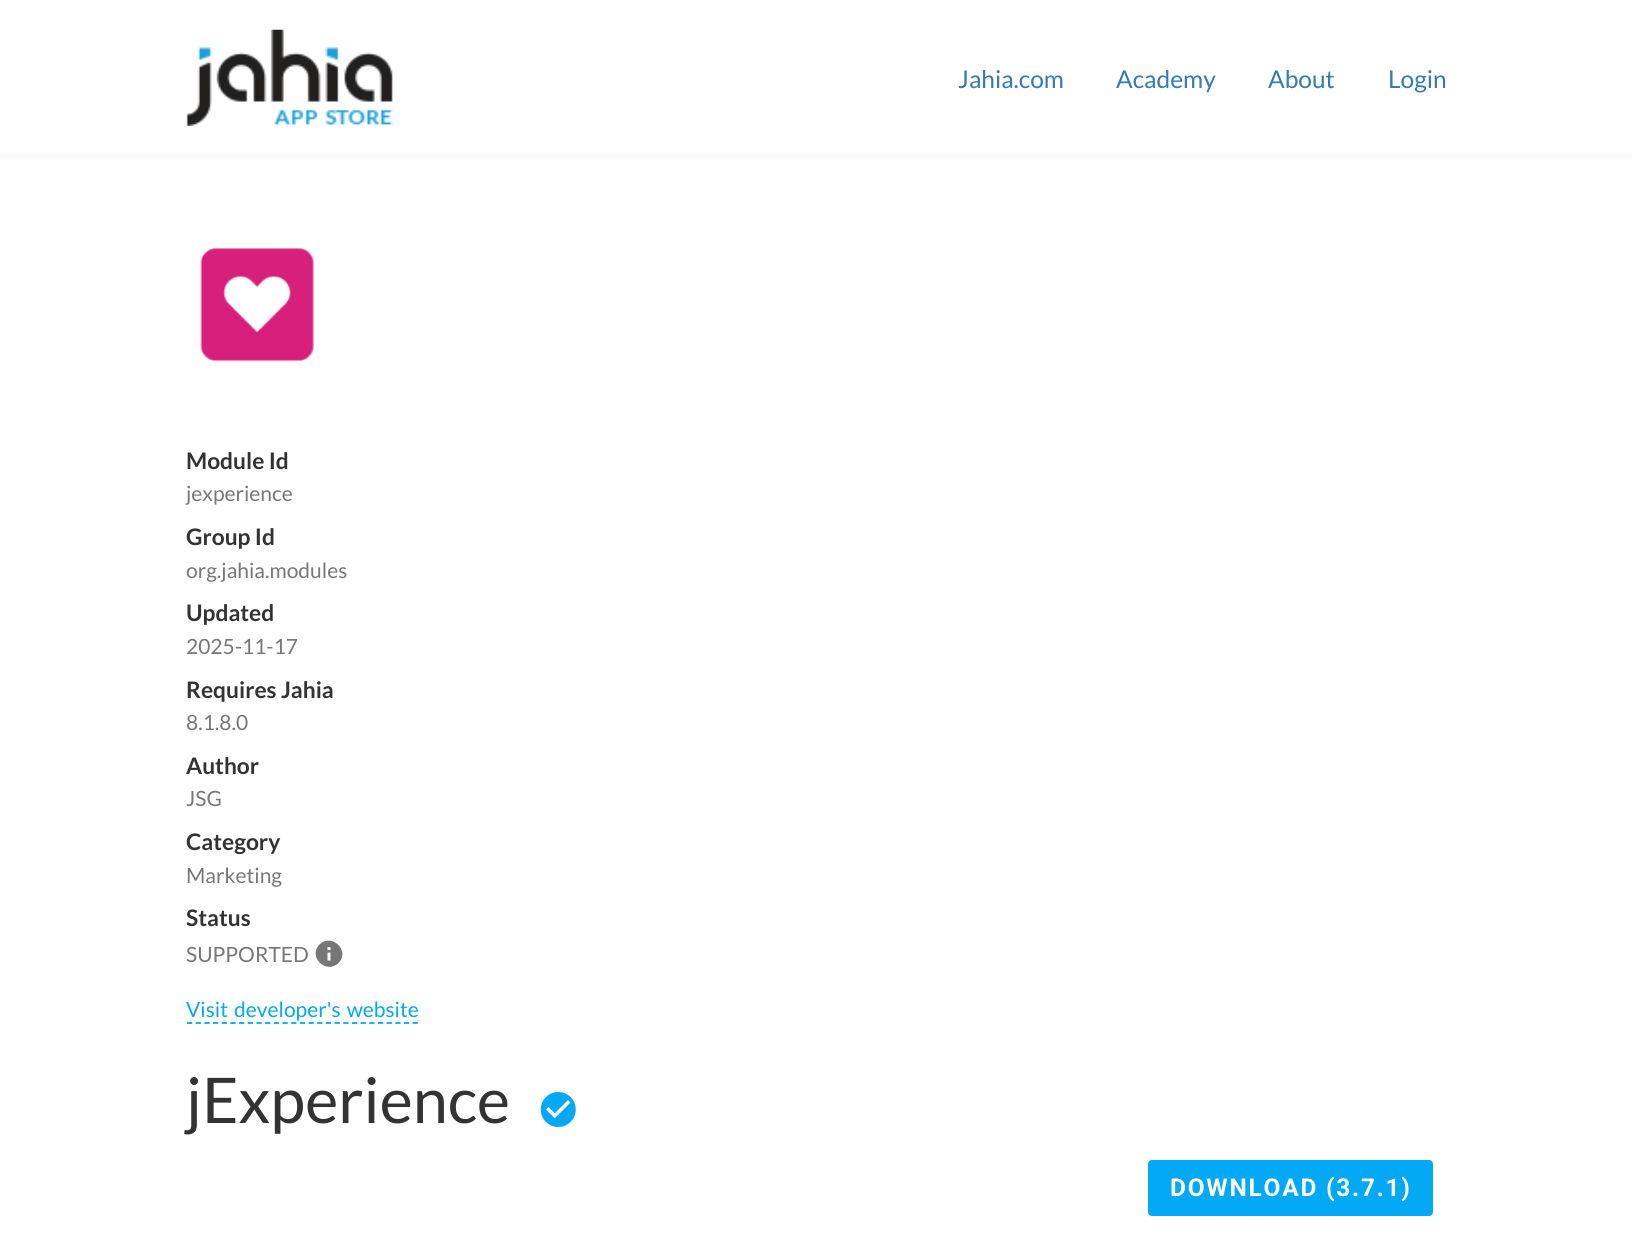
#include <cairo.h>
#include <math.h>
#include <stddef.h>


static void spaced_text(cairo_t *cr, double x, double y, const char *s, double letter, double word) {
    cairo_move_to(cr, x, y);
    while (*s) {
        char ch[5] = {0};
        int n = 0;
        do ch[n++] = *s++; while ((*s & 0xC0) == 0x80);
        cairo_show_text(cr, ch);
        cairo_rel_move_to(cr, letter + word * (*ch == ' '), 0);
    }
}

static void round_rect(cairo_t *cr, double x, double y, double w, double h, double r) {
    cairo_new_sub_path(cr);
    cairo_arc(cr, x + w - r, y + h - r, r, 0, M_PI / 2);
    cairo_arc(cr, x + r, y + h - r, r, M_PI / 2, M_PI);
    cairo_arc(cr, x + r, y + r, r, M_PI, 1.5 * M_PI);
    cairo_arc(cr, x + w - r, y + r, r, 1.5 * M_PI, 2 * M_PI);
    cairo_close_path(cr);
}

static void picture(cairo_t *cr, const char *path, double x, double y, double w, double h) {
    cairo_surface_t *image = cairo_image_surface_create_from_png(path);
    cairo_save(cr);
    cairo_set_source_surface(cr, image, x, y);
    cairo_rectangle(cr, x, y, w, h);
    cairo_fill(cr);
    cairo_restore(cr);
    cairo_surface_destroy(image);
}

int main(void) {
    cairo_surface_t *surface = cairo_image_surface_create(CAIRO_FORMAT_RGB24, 1632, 1245);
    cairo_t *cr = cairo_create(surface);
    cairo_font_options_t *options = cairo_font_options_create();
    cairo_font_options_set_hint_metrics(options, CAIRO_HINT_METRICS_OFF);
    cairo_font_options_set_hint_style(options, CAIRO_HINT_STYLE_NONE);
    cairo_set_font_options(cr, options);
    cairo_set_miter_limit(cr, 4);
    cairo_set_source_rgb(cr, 1, 1, 1);
    cairo_paint(cr);
    cairo_set_source_rgb(cr, 0.973, 0.973, 0.973);
    cairo_rectangle(cr, 0, 154, 1632, 4);
    cairo_fill(cr);
    picture(cr, "img1.png", 186, 29, 207, 97);
    cairo_select_font_face(cr, "Lato", CAIRO_FONT_SLANT_NORMAL, CAIRO_FONT_WEIGHT_NORMAL);
    cairo_set_font_size(cr, 24.5);
    cairo_set_source_rgb(cr, 0.2, 0.478, 0.718);
    cairo_move_to(cr, 958, 88);
    cairo_show_text(cr, "Jahia.com");
    cairo_move_to(cr, 1116, 88);
    cairo_show_text(cr, "Academy");
    cairo_move_to(cr, 1268, 88);
    cairo_show_text(cr, "About");
    cairo_move_to(cr, 1388, 88);
    cairo_show_text(cr, "Login");
    picture(cr, "img2.png", 200, 247, 114, 115);
    cairo_select_font_face(cr, "Lato", CAIRO_FONT_SLANT_NORMAL, CAIRO_FONT_WEIGHT_BOLD);
    cairo_set_font_size(cr, 22.75);
    cairo_set_source_rgb(cr, 0.2, 0.2, 0.2);
    cairo_move_to(cr, 186, 469);
    cairo_show_text(cr, "Module Id");
    cairo_select_font_face(cr, "Lato", CAIRO_FONT_SLANT_NORMAL, CAIRO_FONT_WEIGHT_NORMAL);
    cairo_set_font_size(cr, 21);
    cairo_set_source_rgb(cr, 0.467, 0.467, 0.467);
    cairo_move_to(cr, 186, 501);
    cairo_show_text(cr, "jexperience");
    cairo_select_font_face(cr, "Lato", CAIRO_FONT_SLANT_NORMAL, CAIRO_FONT_WEIGHT_BOLD);
    cairo_set_font_size(cr, 22.75);
    cairo_set_source_rgb(cr, 0.2, 0.2, 0.2);
    cairo_move_to(cr, 186, 545);
    cairo_show_text(cr, "Group Id");
    cairo_select_font_face(cr, "Lato", CAIRO_FONT_SLANT_NORMAL, CAIRO_FONT_WEIGHT_NORMAL);
    cairo_set_font_size(cr, 21);
    cairo_set_source_rgb(cr, 0.467, 0.467, 0.467);
    cairo_move_to(cr, 186, 578);
    cairo_show_text(cr, "org.jahia.modules");
    cairo_select_font_face(cr, "Lato", CAIRO_FONT_SLANT_NORMAL, CAIRO_FONT_WEIGHT_BOLD);
    cairo_set_font_size(cr, 22.75);
    cairo_set_source_rgb(cr, 0.2, 0.2, 0.2);
    cairo_move_to(cr, 186, 621);
    cairo_show_text(cr, "Updated");
    cairo_select_font_face(cr, "Lato", CAIRO_FONT_SLANT_NORMAL, CAIRO_FONT_WEIGHT_NORMAL);
    cairo_set_font_size(cr, 21);
    cairo_set_source_rgb(cr, 0.467, 0.467, 0.467);
    cairo_move_to(cr, 186, 654);
    cairo_show_text(cr, "2025-11-17");
    cairo_select_font_face(cr, "Lato", CAIRO_FONT_SLANT_NORMAL, CAIRO_FONT_WEIGHT_BOLD);
    cairo_set_font_size(cr, 22.75);
    cairo_set_source_rgb(cr, 0.2, 0.2, 0.2);
    cairo_move_to(cr, 186, 698);
    cairo_show_text(cr, "Requires Jahia");
    cairo_select_font_face(cr, "Lato", CAIRO_FONT_SLANT_NORMAL, CAIRO_FONT_WEIGHT_NORMAL);
    cairo_set_font_size(cr, 21);
    cairo_set_source_rgb(cr, 0.467, 0.467, 0.467);
    cairo_move_to(cr, 186, 730);
    cairo_show_text(cr, "8.1.8.0");
    cairo_select_font_face(cr, "Lato", CAIRO_FONT_SLANT_NORMAL, CAIRO_FONT_WEIGHT_BOLD);
    cairo_set_font_size(cr, 22.75);
    cairo_set_source_rgb(cr, 0.2, 0.2, 0.2);
    cairo_move_to(cr, 186, 774);
    cairo_show_text(cr, "Author");
    cairo_select_font_face(cr, "Lato", CAIRO_FONT_SLANT_NORMAL, CAIRO_FONT_WEIGHT_NORMAL);
    cairo_set_font_size(cr, 21);
    cairo_set_source_rgb(cr, 0.467, 0.467, 0.467);
    cairo_move_to(cr, 186, 806);
    cairo_show_text(cr, "JSG");
    cairo_select_font_face(cr, "Lato", CAIRO_FONT_SLANT_NORMAL, CAIRO_FONT_WEIGHT_BOLD);
    cairo_set_font_size(cr, 22.75);
    cairo_set_source_rgb(cr, 0.2, 0.2, 0.2);
    cairo_move_to(cr, 186, 850);
    cairo_show_text(cr, "Category");
    cairo_select_font_face(cr, "Lato", CAIRO_FONT_SLANT_NORMAL, CAIRO_FONT_WEIGHT_NORMAL);
    cairo_set_font_size(cr, 21);
    cairo_set_source_rgb(cr, 0.467, 0.467, 0.467);
    cairo_move_to(cr, 186, 883);
    cairo_show_text(cr, "Marketing");
    cairo_select_font_face(cr, "Lato", CAIRO_FONT_SLANT_NORMAL, CAIRO_FONT_WEIGHT_BOLD);
    cairo_set_font_size(cr, 22.75);
    cairo_set_source_rgb(cr, 0.2, 0.2, 0.2);
    cairo_move_to(cr, 186, 926);
    cairo_show_text(cr, "Status");
    cairo_select_font_face(cr, "Lato", CAIRO_FONT_SLANT_NORMAL, CAIRO_FONT_WEIGHT_NORMAL);
    cairo_set_font_size(cr, 21);
    cairo_set_source_rgb(cr, 0.467, 0.467, 0.467);
    cairo_move_to(cr, 186, 962);
    cairo_show_text(cr, "SUPPORTED");
    cairo_new_path(cr);
    cairo_move_to(cr, 330.5, 950);
    cairo_line_to(cr, 330.5, 947);
    cairo_line_to(cr, 327.5, 947);
    cairo_line_to(cr, 327.5, 950);
    cairo_close_path(cr);
    cairo_move_to(cr, 330.5, 960.5);
    cairo_line_to(cr, 330.5, 952.5);
    cairo_line_to(cr, 327.5, 952.5);
    cairo_line_to(cr, 327.5, 960.5);
    cairo_close_path(cr);
    cairo_move_to(cr, 319.5, 944.5);
    cairo_curve_to(cr, 332, 932.5, 350.5, 951, 338.5, 963);
    cairo_curve_to(cr, 326, 975, 307.5, 956.5, 319.5, 944.5);
    cairo_close_path(cr);
    cairo_fill(cr);
    cairo_set_source_rgb(cr, 0.012, 0.663, 0.957);
    spaced_text(cr, 186, 1017, "Visit developer's website", 0, 2);
    cairo_new_path(cr);
    cairo_move_to(cr, 187, 1023);
    cairo_line_to(cr, 418, 1023);
    cairo_set_line_width(cr, 1.8);
    cairo_set_dash(cr, (double[]){5.25, 3.43}, 2, 0);
    cairo_stroke(cr);
    cairo_set_font_size(cr, 63);
    cairo_set_source_rgb(cr, 0.2, 0.2, 0.2);
    cairo_move_to(cr, 186, 1123);
    cairo_show_text(cr, "jExperience");
    picture(cr, "img3.png", 540, 1092, 36, 35);
    cairo_set_source_rgb(cr, 0.012, 0.663, 0.957);
    round_rect(cr, 1148, 1160, 285, 56, 4);
    cairo_fill(cr);
    cairo_select_font_face(cr, "Roboto", CAIRO_FONT_SLANT_NORMAL, CAIRO_FONT_WEIGHT_BOLD);
    cairo_set_font_size(cr, 24.5);
    cairo_set_source_rgb(cr, 1, 1, 1);
    spaced_text(cr, 1170, 1196, "DOWNLOAD (3.7.1)", 1.75, 0);
    cairo_surface_write_to_png(surface, "page.png");
    cairo_font_options_destroy(options);
    cairo_destroy(cr);
    cairo_surface_destroy(surface);
    return 0;
}
